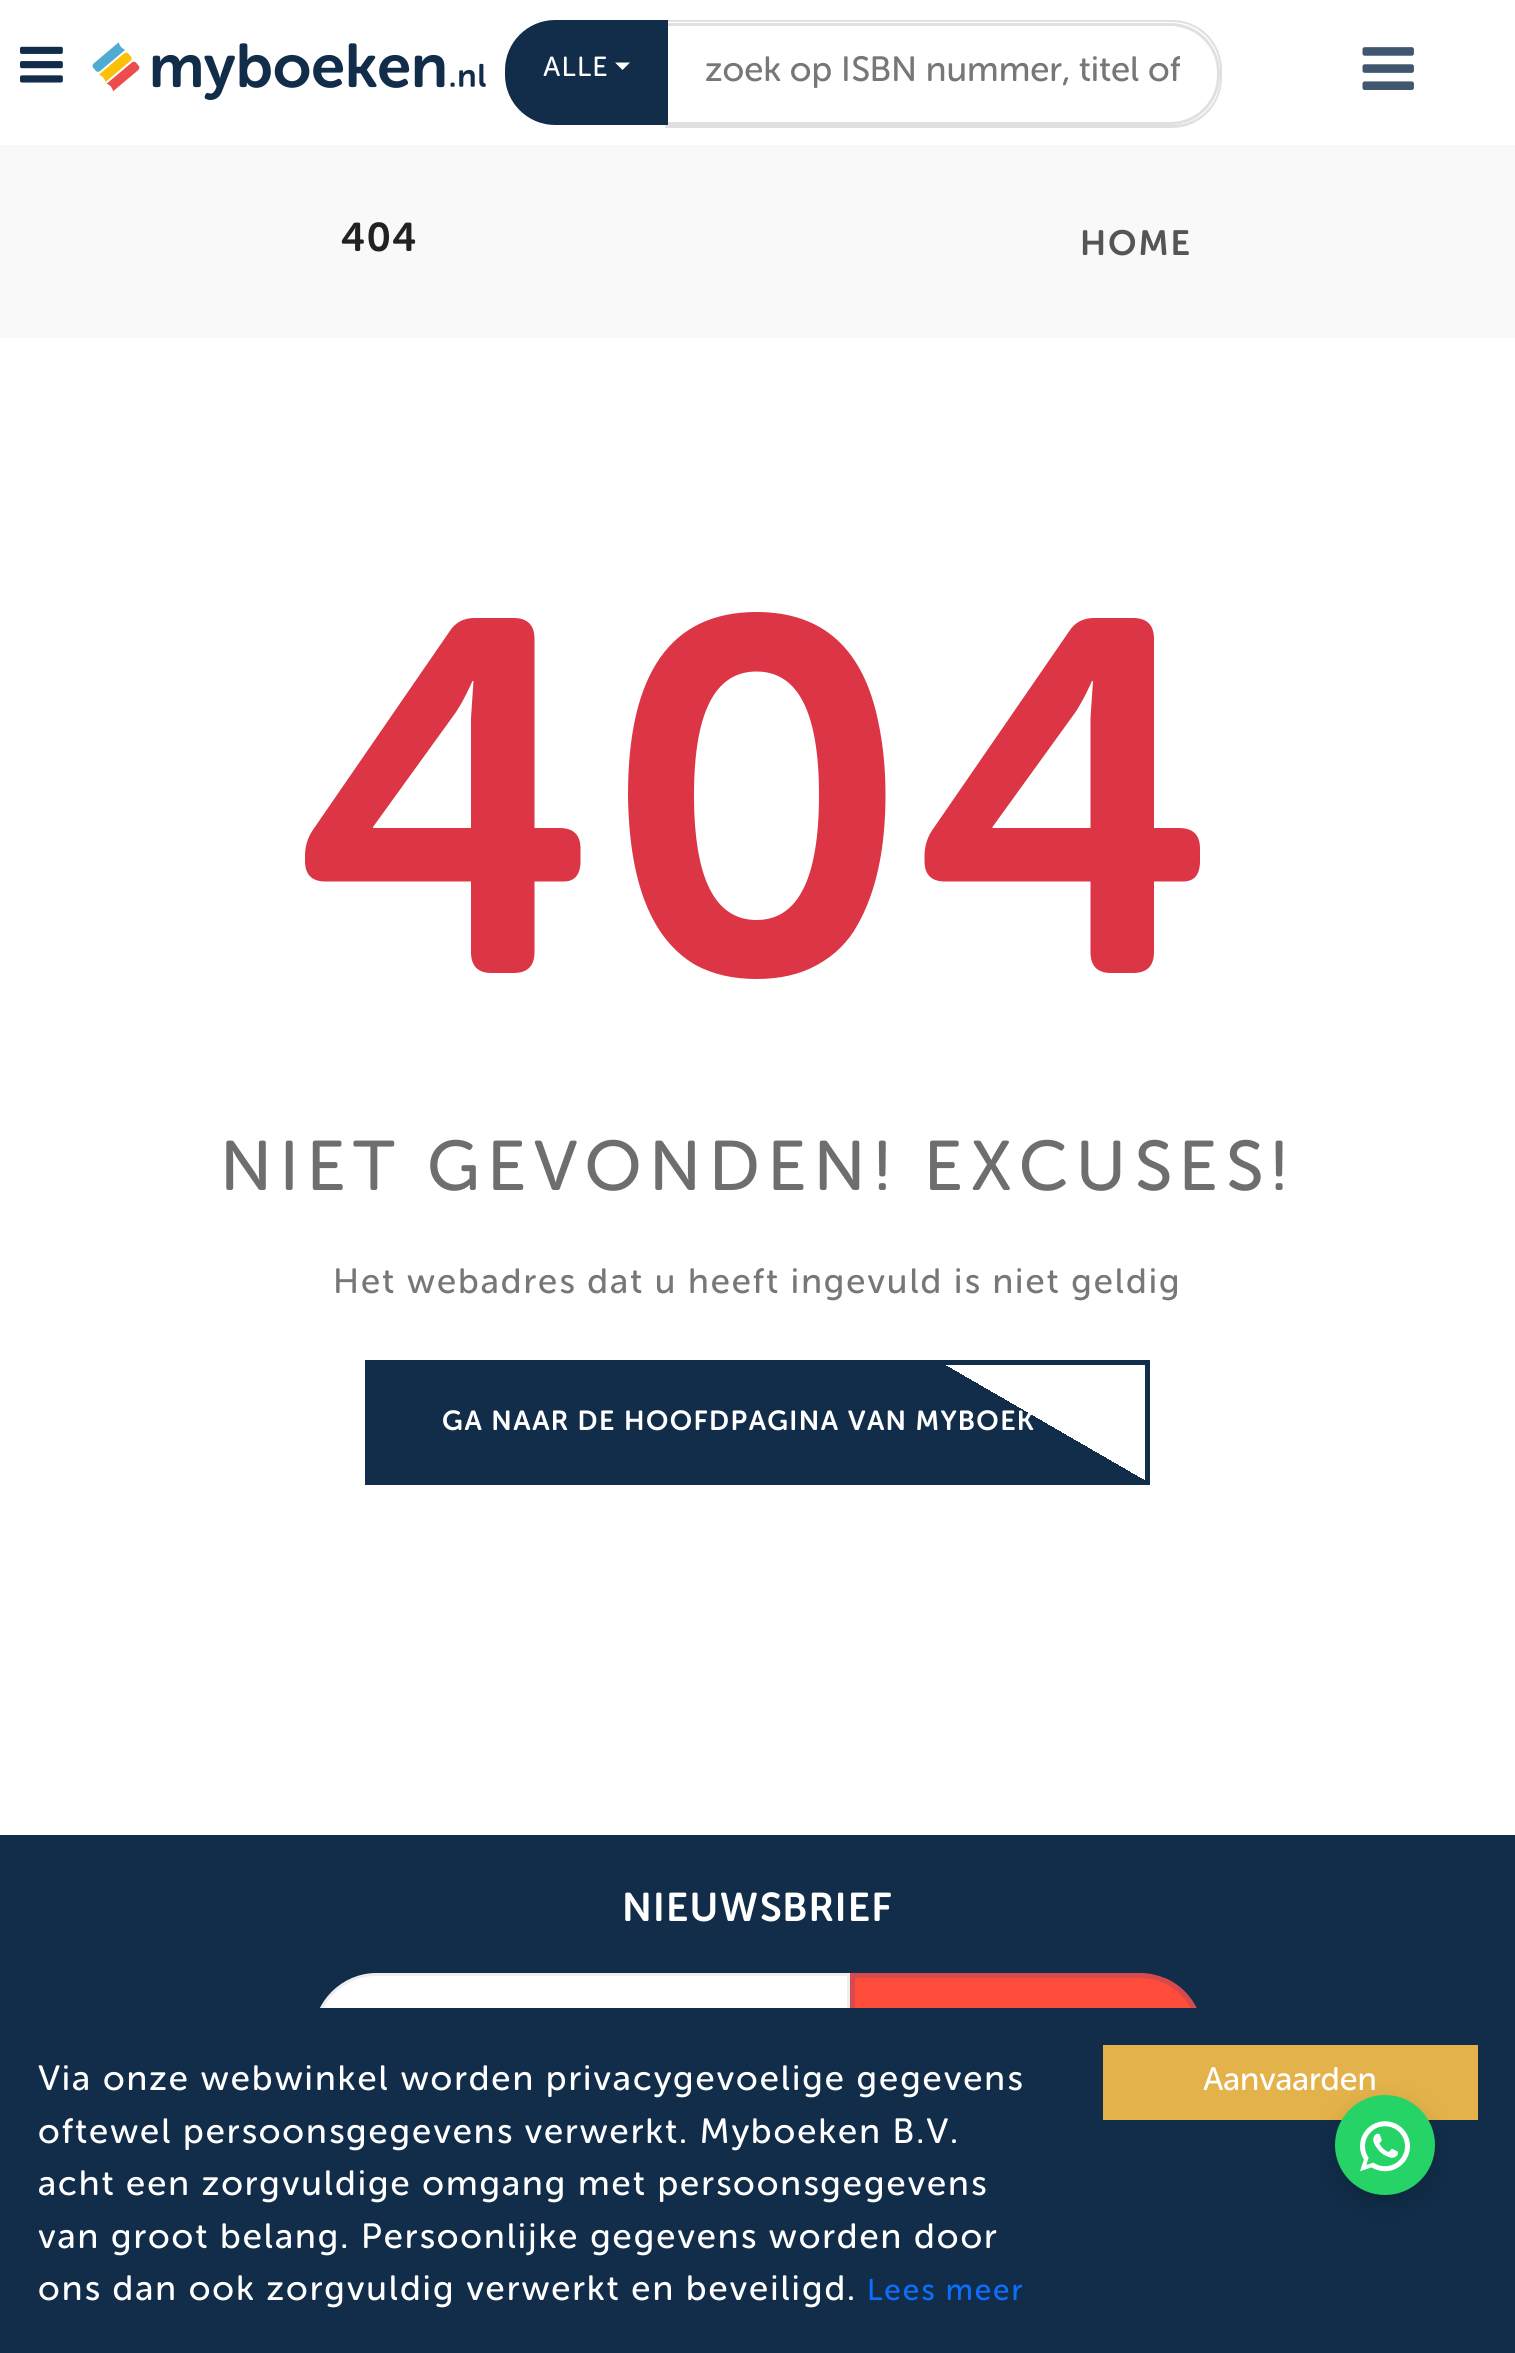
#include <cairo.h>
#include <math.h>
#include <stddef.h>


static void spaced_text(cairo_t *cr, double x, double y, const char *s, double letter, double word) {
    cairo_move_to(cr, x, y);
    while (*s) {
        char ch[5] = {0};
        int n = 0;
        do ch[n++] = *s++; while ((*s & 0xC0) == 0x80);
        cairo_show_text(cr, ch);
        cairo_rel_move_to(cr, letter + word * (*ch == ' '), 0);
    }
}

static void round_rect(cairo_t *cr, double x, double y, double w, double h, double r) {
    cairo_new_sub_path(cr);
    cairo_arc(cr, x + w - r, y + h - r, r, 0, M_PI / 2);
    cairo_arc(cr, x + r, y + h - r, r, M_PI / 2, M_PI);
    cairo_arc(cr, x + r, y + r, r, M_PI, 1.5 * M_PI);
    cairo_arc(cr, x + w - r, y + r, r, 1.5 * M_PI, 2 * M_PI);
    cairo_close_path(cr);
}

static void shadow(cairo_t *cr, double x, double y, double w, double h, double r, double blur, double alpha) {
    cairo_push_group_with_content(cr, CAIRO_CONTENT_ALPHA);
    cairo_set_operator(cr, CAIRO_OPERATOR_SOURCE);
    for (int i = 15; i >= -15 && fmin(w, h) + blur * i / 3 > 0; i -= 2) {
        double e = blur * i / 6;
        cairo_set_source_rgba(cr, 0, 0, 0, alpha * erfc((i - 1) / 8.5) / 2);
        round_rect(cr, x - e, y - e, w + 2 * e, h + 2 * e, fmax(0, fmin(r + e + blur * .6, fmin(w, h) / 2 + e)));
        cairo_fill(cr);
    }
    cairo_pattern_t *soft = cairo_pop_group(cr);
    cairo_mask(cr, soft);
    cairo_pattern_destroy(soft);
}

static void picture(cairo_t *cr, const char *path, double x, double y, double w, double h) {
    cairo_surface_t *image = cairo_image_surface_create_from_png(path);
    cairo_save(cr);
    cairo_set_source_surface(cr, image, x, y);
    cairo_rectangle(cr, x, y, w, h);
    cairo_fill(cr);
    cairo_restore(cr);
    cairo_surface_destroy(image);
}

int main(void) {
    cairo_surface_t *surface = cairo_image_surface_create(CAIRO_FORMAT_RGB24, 1515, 2353);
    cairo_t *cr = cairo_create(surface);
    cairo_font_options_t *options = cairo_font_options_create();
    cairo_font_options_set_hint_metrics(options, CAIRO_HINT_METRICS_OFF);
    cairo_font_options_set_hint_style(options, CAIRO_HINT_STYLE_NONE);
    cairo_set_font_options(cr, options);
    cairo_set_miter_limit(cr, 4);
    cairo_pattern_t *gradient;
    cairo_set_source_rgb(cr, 1, 1, 1);
    cairo_paint(cr);
    picture(cr, "img1.png", 20, 46, 43, 37);
    picture(cr, "img2.png", 92, 42, 394, 58);
    cairo_set_source_rgb(cr, 0.878, 0.878, 0.878);
    cairo_set_fill_rule(cr, CAIRO_FILL_RULE_EVEN_ODD);
    cairo_new_path(cr);
    cairo_move_to(cr, 665, 20);
    cairo_line_to(cr, 1172, 20);
    cairo_curve_to(cr, 1200, 20, 1222, 42, 1222, 70);
    cairo_line_to(cr, 1222, 78);
    cairo_curve_to(cr, 1222, 105, 1200, 128, 1172, 128);
    cairo_line_to(cr, 665, 128);
    cairo_close_path(cr);
    cairo_move_to(cr, 665, 22);
    cairo_line_to(cr, 1172, 22);
    cairo_curve_to(cr, 1199, 22, 1220, 44, 1220, 70);
    cairo_line_to(cr, 1220, 78);
    cairo_curve_to(cr, 1220, 104, 1199, 125, 1172, 125);
    cairo_line_to(cr, 665, 125);
    cairo_close_path(cr);
    cairo_fill(cr);
    cairo_set_source_rgb(cr, 1, 1, 1);
    cairo_new_path(cr);
    cairo_move_to(cr, 666.5, 24.5);
    cairo_line_to(cr, 1170, 24.5);
    cairo_curve_to(cr, 1197, 24.5, 1218.5, 46, 1218.5, 73);
    cairo_line_to(cr, 1218.5, 75);
    cairo_curve_to(cr, 1218.5, 102, 1197, 123.5, 1170, 123.5);
    cairo_line_to(cr, 666.5, 123.5);
    cairo_close_path(cr);
    cairo_fill_preserve(cr);
    cairo_set_source_rgb(cr, 0.878, 0.878, 0.878);
    cairo_set_line_width(cr, 3);
    cairo_stroke(cr);
    gradient = cairo_pattern_create_linear(989, 404, 1371, -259);
    cairo_pattern_add_color_stop_rgba(gradient, 0.5, 0.067, 0.176, 0.29, 1);
    cairo_pattern_add_color_stop_rgba(gradient, 0.5, 0.067, 0.176, 0.29, 0);
    cairo_set_source(cr, gradient);
    cairo_pattern_destroy(gradient);
    cairo_new_path(cr);
    cairo_move_to(cr, 555, 20);
    cairo_line_to(cr, 668, 20);
    cairo_line_to(cr, 668, 125);
    cairo_line_to(cr, 555, 125);
    cairo_curve_to(cr, 527.5, 125, 505, 102.5, 505, 75);
    cairo_line_to(cr, 505, 70);
    cairo_curve_to(cr, 505, 42.5, 527.5, 20, 555, 20);
    cairo_close_path(cr);
    cairo_fill(cr);
    cairo_select_font_face(cr, "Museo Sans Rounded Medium", CAIRO_FONT_SLANT_NORMAL, CAIRO_FONT_WEIGHT_NORMAL);
    cairo_set_font_size(cr, 27.5);
    cairo_set_source_rgb(cr, 1, 1, 1);
    spaced_text(cr, 543, 76, "ALLE", 1.4, 0);
    cairo_set_fill_rule(cr, CAIRO_FILL_RULE_WINDING);
    cairo_new_path(cr);
    cairo_move_to(cr, 615, 62.5);
    cairo_line_to(cr, 630, 62.5);
    cairo_line_to(cr, 622.5, 70);
    cairo_close_path(cr);
    cairo_fill(cr);
    cairo_save(cr);
    cairo_rectangle(cr, 705, 53, 475, 42);
    cairo_clip(cr);
    cairo_set_font_size(cr, 35);
    cairo_set_source_rgb(cr, 0.467, 0.467, 0.467);
    cairo_move_to(cr, 705, 81);
    cairo_show_text(cr, "zoek op ISBN nummer, titel of");
    cairo_restore(cr);
    picture(cr, "img3.png", 1362, 47, 52, 43);
    cairo_set_source_rgb(cr, 0.973, 0.973, 0.973);
    cairo_rectangle(cr, 0, 145, 1515, 193);
    cairo_fill(cr);
    cairo_select_font_face(cr, "Museo Sans Rounded", CAIRO_FONT_SLANT_NORMAL, CAIRO_FONT_WEIGHT_BOLD);
    cairo_set_font_size(cr, 40);
    cairo_set_source_rgb(cr, 0.133, 0.133, 0.133);
    spaced_text(cr, 341, 251, "404", 1, 0);
    cairo_set_font_size(cr, 35);
    cairo_set_source_rgb(cr, 0.333, 0.333, 0.333);
    spaced_text(cr, 1080, 255, "HOME", 2, 0);
    cairo_set_font_size(cr, 500);
    cairo_set_source_rgb(cr, 0.863, 0.208, 0.271);
    spaced_text(cr, 295, 973, "404", 2, 0);
    cairo_select_font_face(cr, "Museo Sans Rounded Medium", CAIRO_FONT_SLANT_NORMAL, CAIRO_FONT_WEIGHT_NORMAL);
    cairo_set_font_size(cr, 70);
    cairo_set_source_rgb(cr, 0.439, 0.427, 0.427);
    spaced_text(cr, 220, 1190, "NIET GEVONDEN! EXCUSES!", 7.5, 0);
    cairo_set_font_size(cr, 35);
    cairo_set_source_rgb(cr, 0.467, 0.467, 0.467);
    spaced_text(cr, 333, 1293, "Het webadres dat u heeft ingevuld is niet geldig", 2, 0);
    gradient = cairo_pattern_create_linear(851, 1758, 1239, 1087);
    cairo_pattern_add_color_stop_rgba(gradient, 0.5, 0.067, 0.176, 0.29, 1);
    cairo_pattern_add_color_stop_rgba(gradient, 0.5, 1, 1, 1, 1);
    cairo_set_source(cr, gradient);
    cairo_pattern_destroy(gradient);
    cairo_rectangle(cr, 370, 1365, 774, 115);
    cairo_fill(cr);
    cairo_rectangle(cr, 367.5, 1362.5, 780, 120);
    cairo_set_source_rgb(cr, 0.067, 0.176, 0.29);
    cairo_set_line_width(cr, 5);
    cairo_stroke(cr);
    cairo_select_font_face(cr, "Museo Sans Rounded", CAIRO_FONT_SLANT_NORMAL, CAIRO_FONT_WEIGHT_BOLD);
    cairo_set_font_size(cr, 27.5);
    cairo_set_source_rgb(cr, 1, 1, 1);
    spaced_text(cr, 442, 1430, "GA NAAR DE HOOFDPAGINA VAN MYBOEK", 1.4, 0);
    cairo_set_source_rgb(cr, 0.067, 0.176, 0.29);
    cairo_rectangle(cr, 0, 1835, 1515, 173);
    cairo_fill(cr);
    cairo_set_font_size(cr, 40);
    cairo_set_source_rgb(cr, 1, 1, 1);
    spaced_text(cr, 622, 1921, "NIEUWSBRIEF", 1.25, 0);
    cairo_new_path(cr);
    cairo_move_to(cr, 376.5, 1974.5);
    cairo_line_to(cr, 848.5, 1974.5);
    cairo_line_to(cr, 848.5, 2098.5);
    cairo_line_to(cr, 376.5, 2098.5);
    cairo_curve_to(cr, 342.5, 2098.5, 314.5, 2070.5, 314.5, 2036.5);
    cairo_curve_to(cr, 314.5, 2002.5, 342.5, 1974.5, 376.5, 1974.5);
    cairo_close_path(cr);
    cairo_fill_preserve(cr);
    cairo_set_source_rgb(cr, 0.933, 0.933, 0.933);
    cairo_set_line_width(cr, 3);
    cairo_stroke(cr);
    cairo_save(cr);
    cairo_new_path(cr);
    cairo_move_to(cr, 850, 1973);
    cairo_line_to(cr, 1140, 1973);
    cairo_curve_to(cr, 1175, 1973, 1203, 2001, 1203, 2036);
    cairo_line_to(cr, 1203, 2037);
    cairo_curve_to(cr, 1203, 2072, 1175, 2100, 1140, 2100);
    cairo_line_to(cr, 850, 2100);
    cairo_close_path(cr);
    cairo_clip(cr);
    gradient = cairo_pattern_create_linear(1336, 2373, 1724, 1700);
    cairo_pattern_add_color_stop_rgba(gradient, 0.5, 1, 0.298, 0.231, 1);
    cairo_pattern_add_color_stop_rgba(gradient, 0.5, 1, 0.298, 0.231, 0);
    cairo_set_source(cr, gradient);
    cairo_pattern_destroy(gradient);
    cairo_rectangle(cr, 855, 1978, 342, 30);
    cairo_fill(cr);
    cairo_restore(cr);
    cairo_new_path(cr);
    cairo_move_to(cr, 852.5, 1975.5);
    cairo_line_to(cr, 1140, 1975.5);
    cairo_curve_to(cr, 1173.5, 1975.5, 1200.5, 2002.5, 1200.5, 2036);
    cairo_line_to(cr, 1200.5, 2037);
    cairo_curve_to(cr, 1200.5, 2070.5, 1173.5, 2097.5, 1140, 2097.5);
    cairo_line_to(cr, 852.5, 2097.5);
    cairo_close_path(cr);
    cairo_set_source_rgb(cr, 0.839, 0.286, 0.298);
    cairo_set_line_width(cr, 5);
    cairo_stroke(cr);
    cairo_set_source_rgb(cr, 0.067, 0.176, 0.29);
    cairo_rectangle(cr, 0, 2008, 1515, 345);
    cairo_fill(cr);
    cairo_select_font_face(cr, "Museo Sans Rounded Medium", CAIRO_FONT_SLANT_NORMAL, CAIRO_FONT_WEIGHT_NORMAL);
    cairo_set_font_size(cr, 35);
    cairo_set_source_rgb(cr, 1, 1, 1);
    spaced_text(cr, 38, 2090, "Via onze webwinkel worden privacygevoelige gegevens", 2, 0);
    spaced_text(cr, 38, 2143, "oftewel persoonsgegevens verwerkt. Myboeken B.V.", 2, 0);
    spaced_text(cr, 38, 2195, "acht een zorgvuldige omgang met persoonsgegevens", 2, 0);
    spaced_text(cr, 38, 2248, "van groot belang. Persoonlijke gegevens worden door", 2, 0);
    spaced_text(cr, 38, 2300, "ons dan ook zorgvuldig verwerkt en beveiligd.", 2, 0);
    cairo_set_font_size(cr, 30);
    cairo_set_source_rgb(cr, 0.051, 0.431, 0.992);
    spaced_text(cr, 867, 2300, "Lees meer", 2, 0);
    cairo_set_source_rgb(cr, 0.894, 0.698, 0.29);
    cairo_rectangle(cr, 1103, 2045, 375, 75);
    cairo_fill(cr);
    cairo_set_font_size(cr, 32.5);
    cairo_set_source_rgb(cr, 1, 1, 1);
    cairo_move_to(cr, 1203, 2090);
    cairo_show_text(cr, "Aanvaarden");
    cairo_set_source_rgb(cr, 0, 0, 0);
    shadow(cr, 1335, 2105, 100, 100, 50, 12.5, 0.15);
    cairo_set_source_rgb(cr, 0.145, 0.827, 0.4);
    cairo_arc(cr, 1385, 2145, 50, 0, 2 * M_PI);
    cairo_fill(cr);
    picture(cr, "img4.png", 1360, 2121, 50, 51);
    cairo_surface_write_to_png(surface, "page.png");
    cairo_font_options_destroy(options);
    cairo_destroy(cr);
    cairo_surface_destroy(surface);
    return 0;
}
